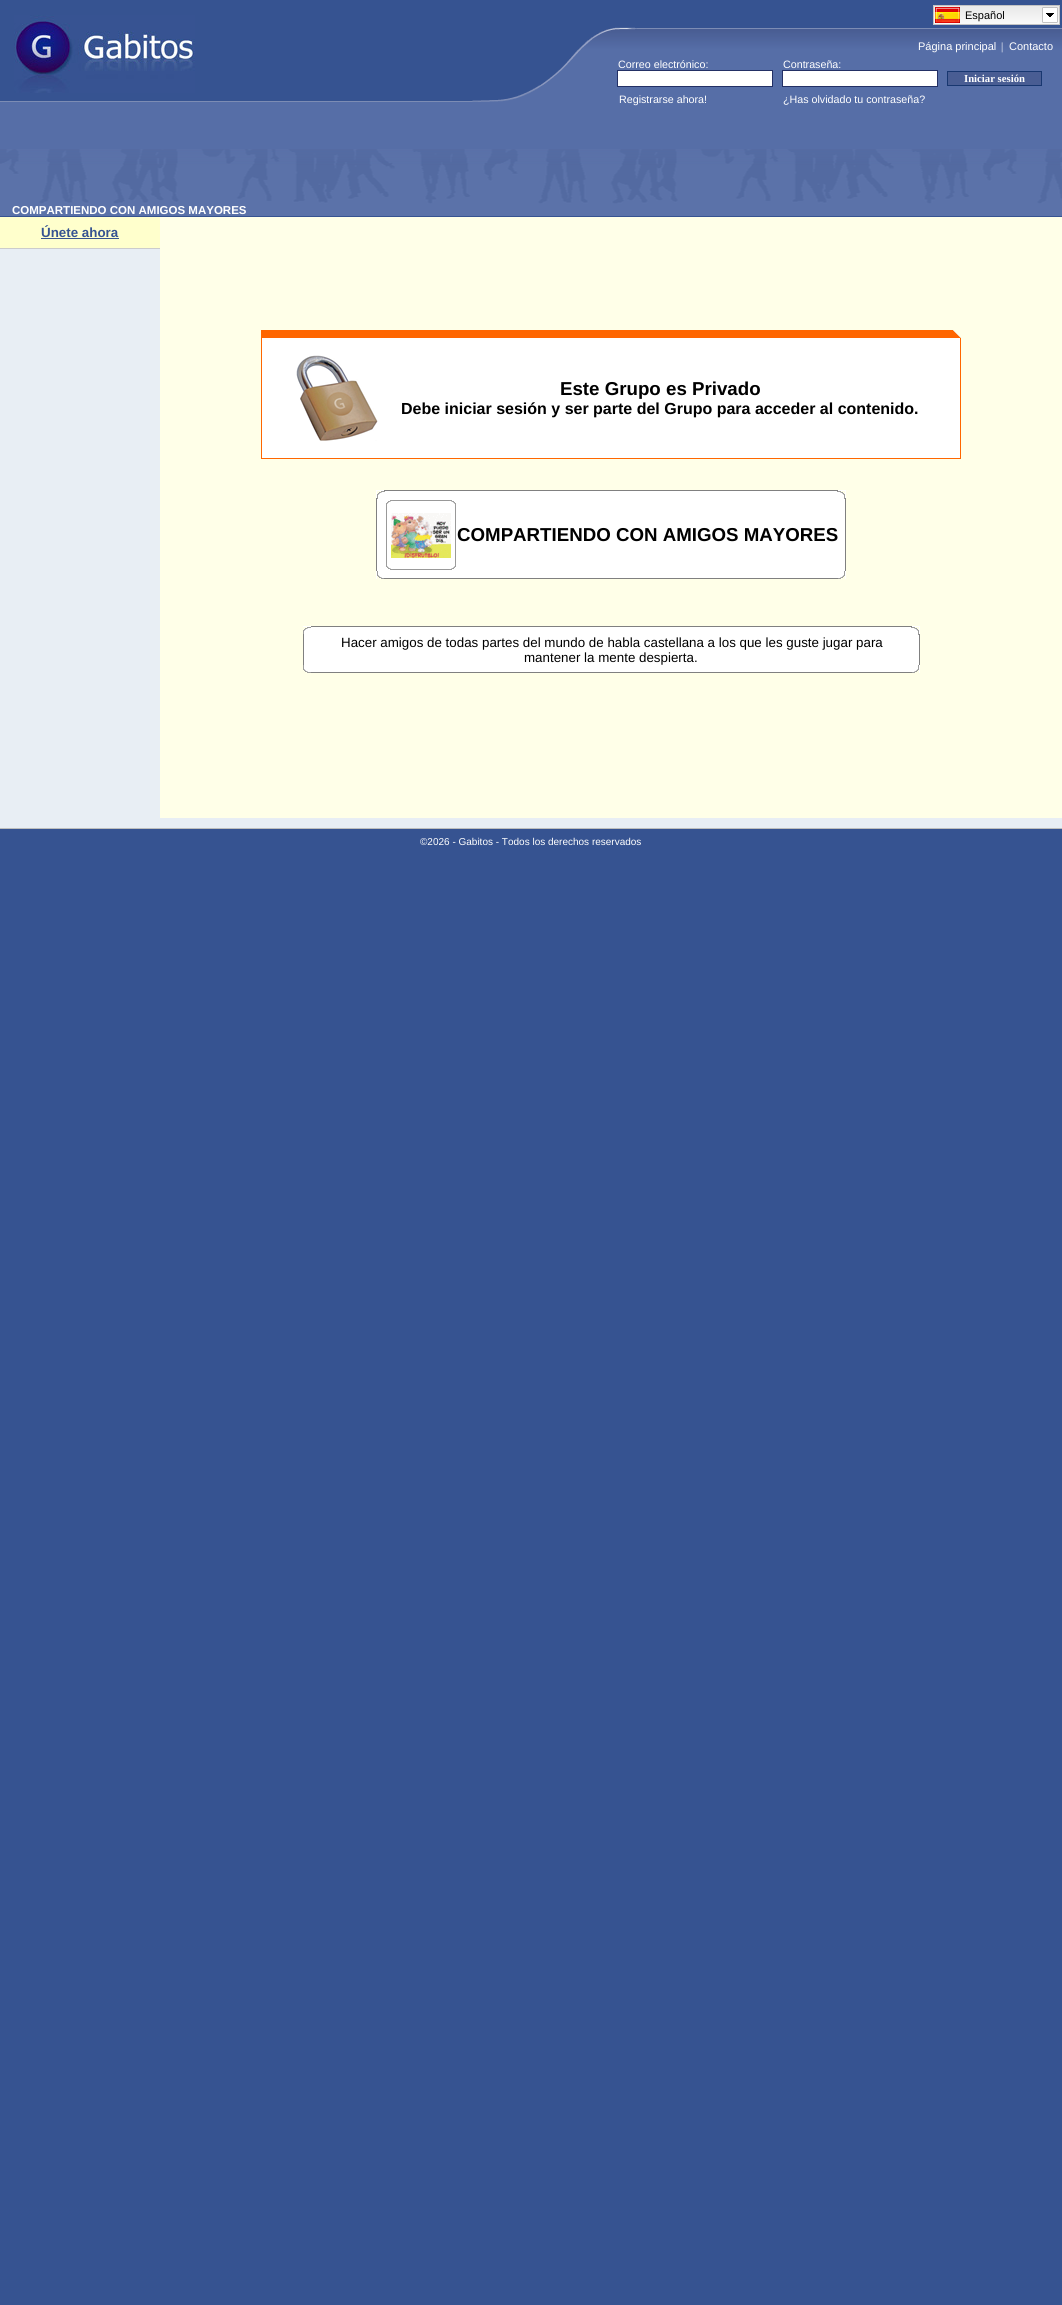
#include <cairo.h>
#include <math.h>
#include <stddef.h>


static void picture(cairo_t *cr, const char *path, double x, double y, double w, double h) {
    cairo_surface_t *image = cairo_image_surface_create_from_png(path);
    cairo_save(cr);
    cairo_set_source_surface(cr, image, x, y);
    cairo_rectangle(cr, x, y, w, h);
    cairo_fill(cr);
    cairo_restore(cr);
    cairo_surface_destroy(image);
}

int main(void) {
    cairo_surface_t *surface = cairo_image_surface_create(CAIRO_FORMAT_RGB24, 1062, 2305);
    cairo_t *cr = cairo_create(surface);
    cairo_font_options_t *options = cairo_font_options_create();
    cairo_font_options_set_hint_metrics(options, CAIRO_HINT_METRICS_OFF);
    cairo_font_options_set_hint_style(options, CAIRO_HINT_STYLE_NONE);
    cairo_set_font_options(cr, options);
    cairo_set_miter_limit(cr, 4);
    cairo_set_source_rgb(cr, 0.212, 0.325, 0.569);
    cairo_paint(cr);
    picture(cr, "img1.png", 14, 15, 181, 78);
    picture(cr, "img2.png", 471, 27, 591, 87);
    picture(cr, "img3.png", 934, 6, 125, 18);
    cairo_rectangle(cr, 933.5, 5.5, 126, 19);
    cairo_set_source_rgb(cr, 0.765, 0.765, 0.765);
    cairo_set_line_width(cr, 1);
    cairo_stroke(cr);
    picture(cr, "img4.png", 935, 7, 25, 16);
    cairo_select_font_face(cr, "Liberation Sans", CAIRO_FONT_SLANT_NORMAL, CAIRO_FONT_WEIGHT_NORMAL);
    cairo_set_font_size(cr, 11);
    cairo_set_source_rgb(cr, 0, 0, 0);
    cairo_move_to(cr, 965, 19);
    cairo_show_text(cr, "Español");
    picture(cr, "img5.png", 1042, 7, 16, 16);
    cairo_set_source_rgb(cr, 1, 1, 1);
    cairo_move_to(cr, 918, 50);
    cairo_show_text(cr, "Página principal");
    cairo_select_font_face(cr, "Liberation Serif", CAIRO_FONT_SLANT_NORMAL, CAIRO_FONT_WEIGHT_NORMAL);
    cairo_move_to(cr, 1001, 50);
    cairo_show_text(cr, "|");
    cairo_select_font_face(cr, "Liberation Sans", CAIRO_FONT_SLANT_NORMAL, CAIRO_FONT_WEIGHT_NORMAL);
    cairo_move_to(cr, 1009, 50);
    cairo_show_text(cr, "Contacto");
    cairo_set_font_size(cr, 10.7);
    cairo_move_to(cr, 618, 68);
    cairo_show_text(cr, "Correo electrónico:");
    cairo_move_to(cr, 783, 68);
    cairo_show_text(cr, "Contraseña:");
    cairo_rectangle(cr, 617.5, 70.5, 155, 16);
    cairo_fill_preserve(cr);
    cairo_set_source_rgb(cr, 0.137, 0.188, 0.396);
    cairo_stroke(cr);
    cairo_set_source_rgb(cr, 1, 1, 1);
    cairo_rectangle(cr, 782.5, 70.5, 155, 16);
    cairo_fill_preserve(cr);
    cairo_set_source_rgb(cr, 0.137, 0.188, 0.396);
    cairo_stroke(cr);
    cairo_set_source_rgb(cr, 0.286, 0.365, 0.576);
    cairo_rectangle(cr, 947.5, 71.5, 94, 14);
    cairo_fill_preserve(cr);
    cairo_set_source_rgb(cr, 0.094, 0.216, 0.439);
    cairo_stroke(cr);
    cairo_select_font_face(cr, "Liberation Serif", CAIRO_FONT_SLANT_NORMAL, CAIRO_FONT_WEIGHT_BOLD);
    cairo_set_source_rgb(cr, 1, 1, 1);
    cairo_move_to(cr, 964, 82);
    cairo_show_text(cr, "Iniciar sesión");
    cairo_select_font_face(cr, "Liberation Sans", CAIRO_FONT_SLANT_NORMAL, CAIRO_FONT_WEIGHT_NORMAL);
    cairo_move_to(cr, 619, 103);
    cairo_show_text(cr, "Registrarse ahora!");
    cairo_move_to(cr, 783, 103);
    cairo_show_text(cr, "¿Has olvidado tu contraseña?");
    cairo_set_source_rgb(cr, 0.337, 0.431, 0.655);
    cairo_rectangle(cr, 0, 102, 471, 12);
    cairo_fill(cr);
    cairo_set_source_rgb(cr, 0.486, 0.549, 0.706);
    cairo_rectangle(cr, 0, 101, 471, 1);
    cairo_fill(cr);
    cairo_set_source_rgb(cr, 0.337, 0.431, 0.655);
    cairo_rectangle(cr, 0, 114, 1062, 35);
    cairo_fill(cr);
    picture(cr, "img6.png", 0, 149, 1062, 55);
    cairo_set_source_rgb(cr, 0.357, 0.447, 0.663);
    cairo_rectangle(cr, 0, 204, 1062, 12);
    cairo_fill(cr);
    cairo_select_font_face(cr, "Liberation Sans", CAIRO_FONT_SLANT_NORMAL, CAIRO_FONT_WEIGHT_BOLD);
    cairo_set_font_size(cr, 11.5);
    cairo_set_source_rgb(cr, 1, 1, 1);
    cairo_move_to(cr, 12, 214);
    cairo_show_text(cr, "COMPARTIENDO CON AMIGOS MAYORES");
    cairo_set_source_rgb(cr, 1, 1, 0.91);
    cairo_rectangle(cr, 160, 217, 902, 601);
    cairo_fill(cr);
    cairo_set_source_rgb(cr, 0.91, 0.933, 0.957);
    cairo_rectangle(cr, 0, 249, 160, 569);
    cairo_fill(cr);
    cairo_set_source_rgb(cr, 1, 1, 0.8);
    cairo_rectangle(cr, 0, 217, 160, 31);
    cairo_fill(cr);
    cairo_set_font_size(cr, 13.35);
    cairo_set_source_rgb(cr, 0.212, 0.325, 0.569);
    cairo_move_to(cr, 41, 237);
    cairo_show_text(cr, "Únete ahora");
    cairo_rectangle(cr, 41, 238, 78, 1);
    cairo_fill(cr);
    cairo_set_source_rgb(cr, 0.8, 0.8, 0.8);
    cairo_rectangle(cr, 0, 248, 160, 1);
    cairo_fill(cr);
    cairo_set_source_rgb(cr, 1, 0.4, 0);
    cairo_rectangle(cr, 261, 330, 692, 8);
    cairo_fill(cr);
    picture(cr, "img7.png", 953, 330, 8, 8);
    cairo_set_source_rgb(cr, 1, 1, 1);
    cairo_rectangle(cr, 262, 338, 698, 120);
    cairo_fill(cr);
    cairo_set_source_rgb(cr, 1, 0.4, 0);
    cairo_rectangle(cr, 960, 338, 1, 121);
    cairo_fill(cr);
    cairo_rectangle(cr, 261, 458, 700, 1);
    cairo_fill(cr);
    cairo_rectangle(cr, 261, 338, 1, 121);
    cairo_fill(cr);
    picture(cr, "img8.png", 296, 355, 82, 86);
    cairo_set_font_size(cr, 18.7);
    cairo_set_source_rgb(cr, 0, 0, 0);
    cairo_move_to(cr, 560, 395);
    cairo_show_text(cr, "Este Grupo es Privado");
    cairo_set_font_size(cr, 16);
    cairo_move_to(cr, 401, 414);
    cairo_show_text(cr, "Debe iniciar sesión y ser parte del Grupo para acceder al contenido.");
    cairo_set_source_rgb(cr, 1, 1, 1);
    cairo_rectangle(cr, 376, 490, 470, 89);
    cairo_fill(cr);
    cairo_set_source_rgb(cr, 0.502, 0.502, 0.502);
    cairo_rectangle(cr, 384, 490, 454, 1);
    cairo_fill(cr);
    picture(cr, "img9.png", 377, 491, 8, 8);
    picture(cr, "img10.png", 837, 491, 8, 8);
    cairo_rectangle(cr, 376, 498, 1, 73);
    cairo_fill(cr);
    picture(cr, "img11.png", 386, 500, 70, 70);
    picture(cr, "img12.png", 391, 513, 60, 45);
    cairo_set_font_size(cr, 18.7);
    cairo_set_source_rgb(cr, 0, 0, 0);
    cairo_move_to(cr, 457, 541);
    cairo_show_text(cr, "COMPARTIENDO CON AMIGOS MAYORES");
    cairo_set_source_rgb(cr, 0.502, 0.502, 0.502);
    cairo_rectangle(cr, 845, 498, 1, 73);
    cairo_fill(cr);
    picture(cr, "img13.png", 377, 571, 8, 8);
    picture(cr, "img14.png", 837, 571, 8, 8);
    cairo_rectangle(cr, 384, 578, 454, 1);
    cairo_fill(cr);
    cairo_set_source_rgb(cr, 1, 1, 1);
    cairo_rectangle(cr, 303, 626, 617, 47);
    cairo_fill(cr);
    cairo_set_source_rgb(cr, 0.502, 0.502, 0.502);
    cairo_rectangle(cr, 311, 626, 601, 1);
    cairo_fill(cr);
    picture(cr, "img9.png", 303, 627, 8, 8);
    picture(cr, "img10.png", 911, 627, 8, 8);
    cairo_rectangle(cr, 303, 634, 1, 31);
    cairo_fill(cr);
    cairo_select_font_face(cr, "Liberation Sans", CAIRO_FONT_SLANT_NORMAL, CAIRO_FONT_WEIGHT_NORMAL);
    cairo_set_font_size(cr, 13.35);
    cairo_set_source_rgb(cr, 0, 0, 0);
    cairo_move_to(cr, 341, 647);
    cairo_show_text(cr, "Hacer amigos de todas partes del mundo de habla castellana a los que les guste jugar para");
    cairo_move_to(cr, 524, 662);
    cairo_show_text(cr, "mantener la mente despierta.");
    cairo_set_source_rgb(cr, 0.502, 0.502, 0.502);
    cairo_rectangle(cr, 919, 634, 1, 31);
    cairo_fill(cr);
    picture(cr, "img13.png", 303, 665, 8, 8);
    picture(cr, "img14.png", 911, 665, 8, 8);
    cairo_rectangle(cr, 311, 672, 601, 1);
    cairo_fill(cr);
    cairo_set_source_rgb(cr, 0.91, 0.933, 0.957);
    cairo_rectangle(cr, 0, 818, 1062, 10);
    cairo_fill(cr);
    cairo_set_source_rgb(cr, 0.741, 0.745, 0.741);
    cairo_rectangle(cr, 0, 828, 1062, 1);
    cairo_fill(cr);
    cairo_set_font_size(cr, 10);
    cairo_set_source_rgb(cr, 1, 1, 1);
    cairo_move_to(cr, 420, 845);
    cairo_show_text(cr, "©2026 - Gabitos - Todos los derechos reservados");
    cairo_surface_write_to_png(surface, "page.png");
    cairo_font_options_destroy(options);
    cairo_destroy(cr);
    cairo_surface_destroy(surface);
    return 0;
}
